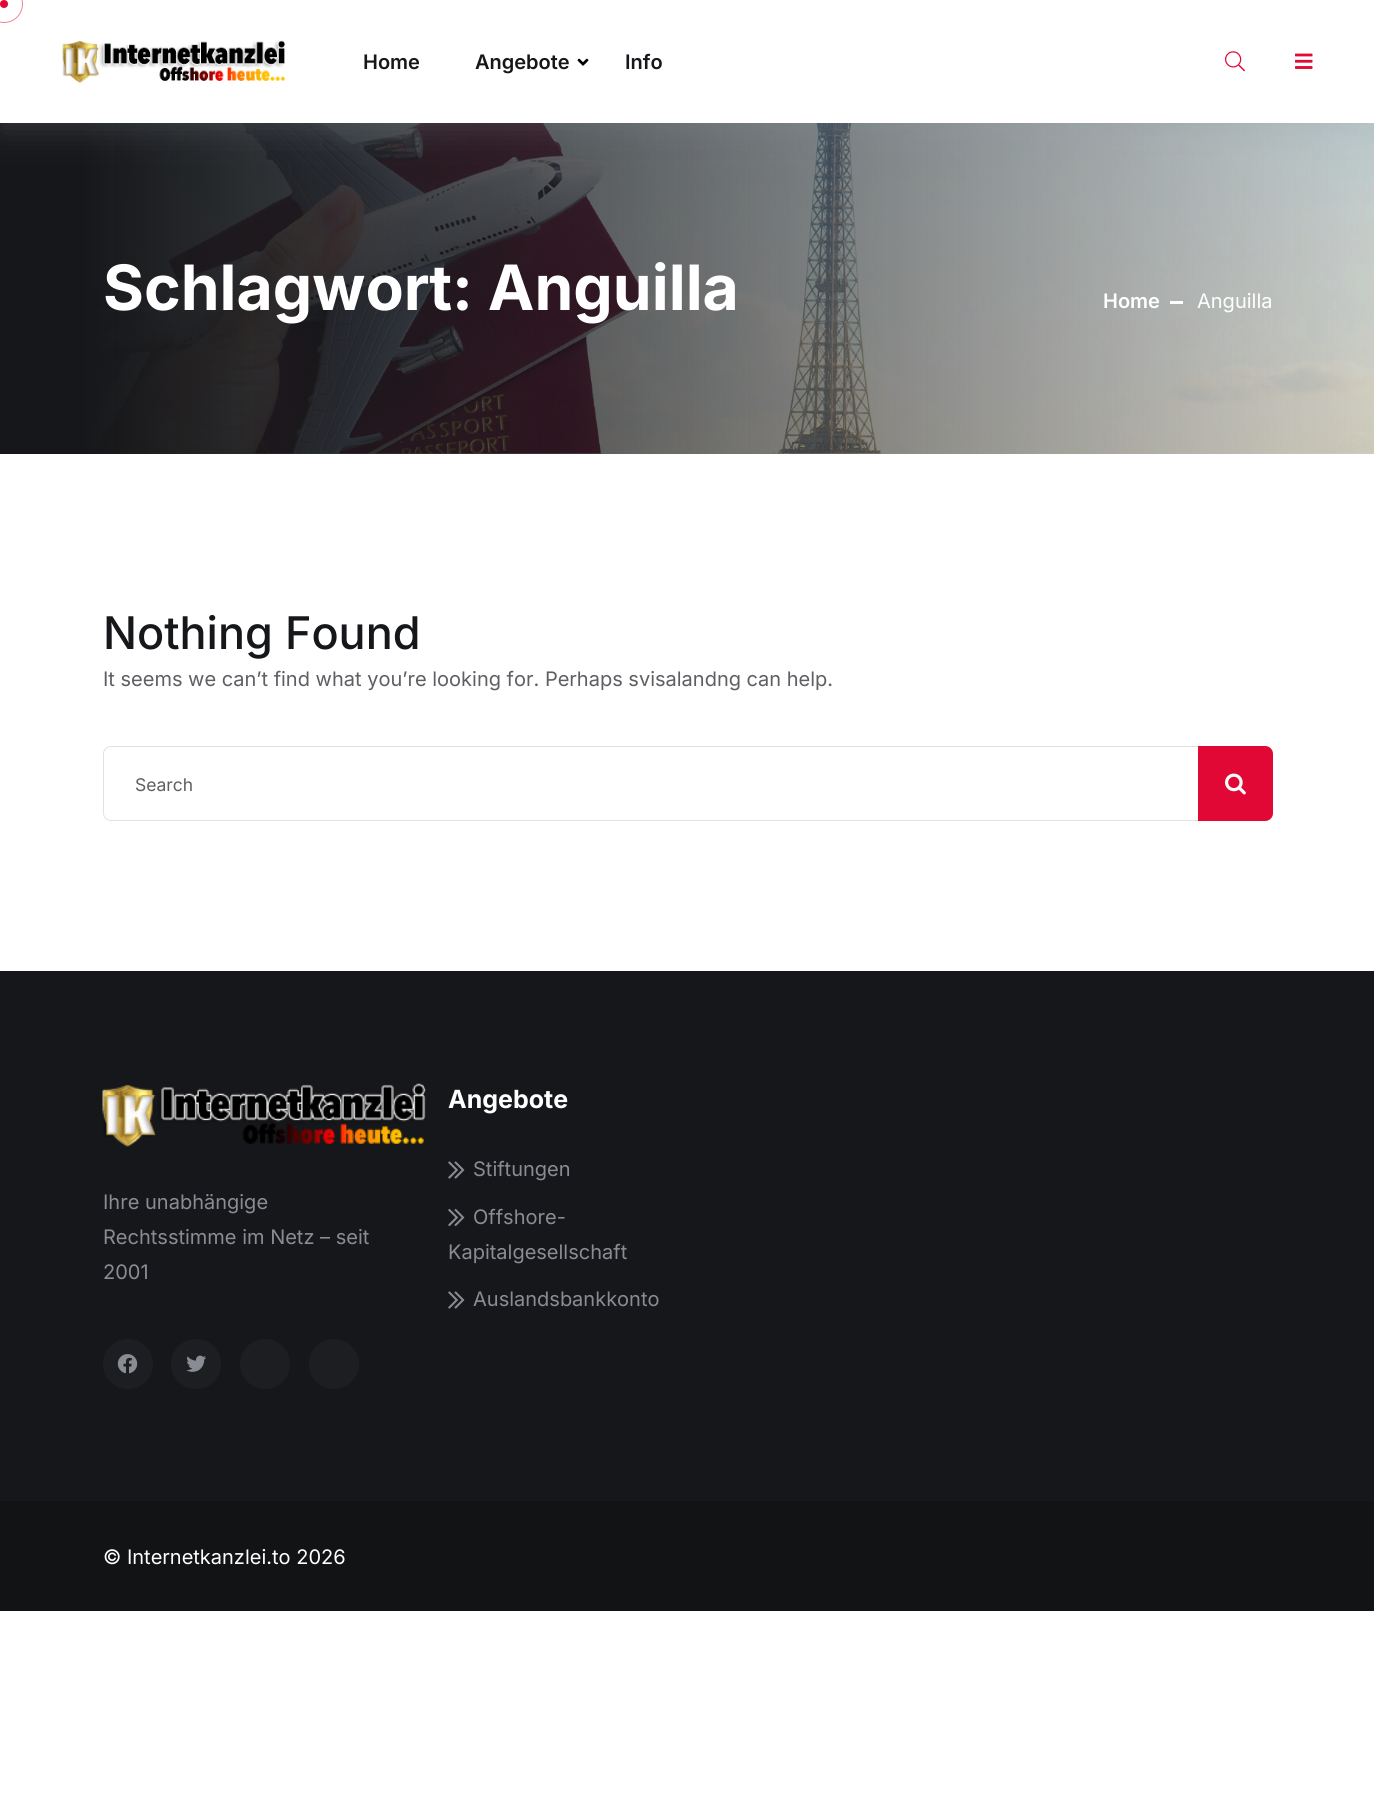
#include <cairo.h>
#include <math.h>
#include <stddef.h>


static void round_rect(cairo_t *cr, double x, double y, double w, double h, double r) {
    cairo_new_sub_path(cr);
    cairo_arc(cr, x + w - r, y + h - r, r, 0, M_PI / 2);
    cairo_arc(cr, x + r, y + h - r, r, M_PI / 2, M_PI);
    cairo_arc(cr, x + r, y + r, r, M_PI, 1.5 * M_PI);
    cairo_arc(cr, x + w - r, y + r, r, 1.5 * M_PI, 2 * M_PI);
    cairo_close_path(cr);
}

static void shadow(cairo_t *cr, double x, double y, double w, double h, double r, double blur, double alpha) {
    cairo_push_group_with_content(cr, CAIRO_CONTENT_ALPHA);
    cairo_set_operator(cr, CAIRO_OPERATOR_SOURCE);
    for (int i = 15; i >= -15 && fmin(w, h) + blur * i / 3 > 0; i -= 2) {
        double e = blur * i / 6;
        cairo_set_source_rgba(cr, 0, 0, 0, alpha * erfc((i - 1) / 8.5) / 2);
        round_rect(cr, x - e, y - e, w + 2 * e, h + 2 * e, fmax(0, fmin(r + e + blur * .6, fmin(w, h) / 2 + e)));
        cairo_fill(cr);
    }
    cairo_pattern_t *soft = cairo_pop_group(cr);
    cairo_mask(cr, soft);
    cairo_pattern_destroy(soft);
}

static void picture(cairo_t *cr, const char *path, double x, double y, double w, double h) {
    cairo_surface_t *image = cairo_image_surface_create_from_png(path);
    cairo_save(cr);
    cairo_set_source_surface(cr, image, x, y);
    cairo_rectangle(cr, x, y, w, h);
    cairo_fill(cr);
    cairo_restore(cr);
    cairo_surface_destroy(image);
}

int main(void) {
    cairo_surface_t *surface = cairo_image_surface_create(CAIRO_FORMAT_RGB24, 1374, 1801);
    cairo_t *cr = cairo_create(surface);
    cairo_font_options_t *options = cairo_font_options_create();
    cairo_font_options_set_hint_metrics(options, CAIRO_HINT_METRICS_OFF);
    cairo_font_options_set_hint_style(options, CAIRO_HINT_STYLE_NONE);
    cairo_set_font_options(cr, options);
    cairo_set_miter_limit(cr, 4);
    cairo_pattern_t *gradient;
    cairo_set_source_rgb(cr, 1, 1, 1);
    cairo_paint(cr);
    picture(cr, "img5.png", 92, 123, 1282, 331);
    gradient = cairo_pattern_create_linear(0, 288, 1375, 288);
    cairo_pattern_add_color_stop_rgba(gradient, 0.06, 0.086, 0.09, 0.102, 1);
    cairo_pattern_add_color_stop_rgba(gradient, 1, 0.086, 0.09, 0.102, 0.2);
    cairo_set_source(cr, gradient);
    cairo_pattern_destroy(gradient);
    cairo_rectangle(cr, 0, 123, 1374, 331);
    cairo_fill(cr);
    cairo_set_source_rgb(cr, 0.584, 0.616, 0.647);
    shadow(cr, 0, 10, 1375, 123, 0, 15, 0.2);
    cairo_set_source_rgb(cr, 1, 1, 1);
    cairo_rectangle(cr, 0, 0, 1374, 123);
    cairo_fill(cr);
    cairo_arc(cr, 4, 4, 18.5, 0, 2 * M_PI);
    cairo_set_source_rgb(cr, 0.945, 0.518, 0.604);
    cairo_set_line_width(cr, 1);
    cairo_stroke(cr);
    cairo_set_source_rgb(cr, 0.886, 0.035, 0.208);
    cairo_arc(cr, 4, 4, 4, 0, 2 * M_PI);
    cairo_fill(cr);
    picture(cr, "img1.png", 62, 40, 223, 43);
    cairo_select_font_face(cr, "Inter SemiBold", CAIRO_FONT_SLANT_NORMAL, CAIRO_FONT_WEIGHT_NORMAL);
    cairo_set_font_size(cr, 20);
    cairo_set_source_rgb(cr, 0.086, 0.09, 0.102);
    cairo_move_to(cr, 363, 69);
    cairo_show_text(cr, "Home");
    cairo_move_to(cr, 475, 69);
    cairo_show_text(cr, "Angebote");
    picture(cr, "img2.png", 577, 58, 12, 8);
    cairo_move_to(cr, 625, 69);
    cairo_show_text(cr, "Info");
    picture(cr, "img3.png", 1225, 51, 20, 21);
    picture(cr, "img4.png", 1295, 53, 18, 16);
    cairo_select_font_face(cr, "Inter", CAIRO_FONT_SLANT_NORMAL, CAIRO_FONT_WEIGHT_BOLD);
    cairo_set_font_size(cr, 62.5);
    cairo_set_source_rgb(cr, 1, 1, 1);
    cairo_move_to(cr, 103, 310);
    cairo_show_text(cr, "Schlagwort: Anguilla");
    cairo_select_font_face(cr, "Inter SemiBold", CAIRO_FONT_SLANT_NORMAL, CAIRO_FONT_WEIGHT_NORMAL);
    cairo_set_font_size(cr, 20);
    cairo_move_to(cr, 1103, 308);
    cairo_show_text(cr, "Home");
    cairo_rectangle(cr, 1170, 301, 13, 3);
    cairo_fill(cr);
    cairo_select_font_face(cr, "Inter", CAIRO_FONT_SLANT_NORMAL, CAIRO_FONT_WEIGHT_NORMAL);
    cairo_move_to(cr, 1197, 308);
    cairo_show_text(cr, "Anguilla");
    cairo_select_font_face(cr, "Inter Medium", CAIRO_FONT_SLANT_NORMAL, CAIRO_FONT_WEIGHT_NORMAL);
    cairo_set_font_size(cr, 45);
    cairo_set_source_rgb(cr, 0.086, 0.09, 0.102);
    cairo_move_to(cr, 103, 649);
    cairo_show_text(cr, "Nothing Found");
    cairo_select_font_face(cr, "Inter", CAIRO_FONT_SLANT_NORMAL, CAIRO_FONT_WEIGHT_NORMAL);
    cairo_set_font_size(cr, 20);
    cairo_set_source_rgb(cr, 0.369, 0.373, 0.388);
    cairo_move_to(cr, 103, 686);
    cairo_show_text(cr, "It seems we can’t find what you’re looking for. Perhaps svisalandng can help.");
    round_rect(cr, 103.5, 746.5, 1169, 74, 7.5);
    cairo_set_source_rgb(cr, 0.886, 0.886, 0.886);
    cairo_stroke(cr);
    cairo_set_font_size(cr, 17.5);
    cairo_set_source_rgb(cr, 0.369, 0.373, 0.388);
    cairo_move_to(cr, 135, 791);
    cairo_show_text(cr, "Search");
    cairo_set_source_rgb(cr, 0.886, 0.035, 0.208);
    cairo_new_path(cr);
    cairo_move_to(cr, 1198, 746);
    cairo_line_to(cr, 1265, 746);
    cairo_curve_to(cr, 1269.5, 746, 1273, 749.5, 1273, 754);
    cairo_line_to(cr, 1273, 813);
    cairo_curve_to(cr, 1273, 817.5, 1269.5, 821, 1265, 821);
    cairo_line_to(cr, 1198, 821);
    cairo_close_path(cr);
    cairo_fill(cr);
    picture(cr, "img6.png", 1225, 773, 21, 22);
    cairo_set_source_rgb(cr, 0.086, 0.09, 0.102);
    cairo_rectangle(cr, 0, 971, 1374, 530);
    cairo_fill(cr);
    picture(cr, "img7.png", 102, 1083, 324, 64);
    cairo_set_font_size(cr, 20);
    cairo_set_source_rgb(cr, 0.541, 0.549, 0.58);
    cairo_move_to(cr, 103, 1209);
    cairo_show_text(cr, "Ihre unabhängige");
    cairo_move_to(cr, 103, 1244);
    cairo_show_text(cr, "Rechtsstimme im Netz – seit");
    cairo_move_to(cr, 103, 1279);
    cairo_show_text(cr, "2001");
    cairo_set_source_rgb(cr, 0.114, 0.118, 0.129);
    cairo_new_path(cr);
    cairo_arc(cr, 128, 1364, 25, 0, 2 * M_PI);
    cairo_fill(cr);
    picture(cr, "img8.png", 117, 1354, 21, 20);
    cairo_arc(cr, 196, 1364, 25, 0, 2 * M_PI);
    cairo_fill(cr);
    picture(cr, "img9.png", 186, 1355, 20, 17);
    cairo_arc(cr, 265, 1364, 25, 0, 2 * M_PI);
    cairo_fill(cr);
    cairo_arc(cr, 334, 1364, 25, 0, 2 * M_PI);
    cairo_fill(cr);
    cairo_select_font_face(cr, "Inter", CAIRO_FONT_SLANT_NORMAL, CAIRO_FONT_WEIGHT_BOLD);
    cairo_set_font_size(cr, 25);
    cairo_set_source_rgb(cr, 1, 1, 1);
    cairo_move_to(cr, 448, 1108);
    cairo_show_text(cr, "Angebote");
    picture(cr, "img10.png", 448, 1161, 17, 18);
    cairo_select_font_face(cr, "Inter", CAIRO_FONT_SLANT_NORMAL, CAIRO_FONT_WEIGHT_NORMAL);
    cairo_set_font_size(cr, 20);
    cairo_set_source_rgb(cr, 0.541, 0.549, 0.58);
    cairo_move_to(cr, 473, 1176);
    cairo_show_text(cr, "Stiftungen");
    picture(cr, "img11.png", 448, 1208, 17, 19);
    cairo_move_to(cr, 473, 1224);
    cairo_show_text(cr, "Offshore-");
    cairo_move_to(cr, 448, 1259);
    cairo_show_text(cr, "Kapitalgesellschaft");
    picture(cr, "img10.png", 448, 1291, 17, 18);
    cairo_move_to(cr, 473, 1306);
    cairo_show_text(cr, "Auslandsbankkonto");
    cairo_set_source_rgb(cr, 0.071, 0.075, 0.082);
    cairo_rectangle(cr, 0, 1501, 1374, 110);
    cairo_fill(cr);
    cairo_set_source_rgb(cr, 1, 1, 1);
    cairo_move_to(cr, 103, 1564);
    cairo_show_text(cr, "© Internetkanzlei.to 2026");
    cairo_surface_write_to_png(surface, "page.png");
    cairo_font_options_destroy(options);
    cairo_destroy(cr);
    cairo_surface_destroy(surface);
    return 0;
}
